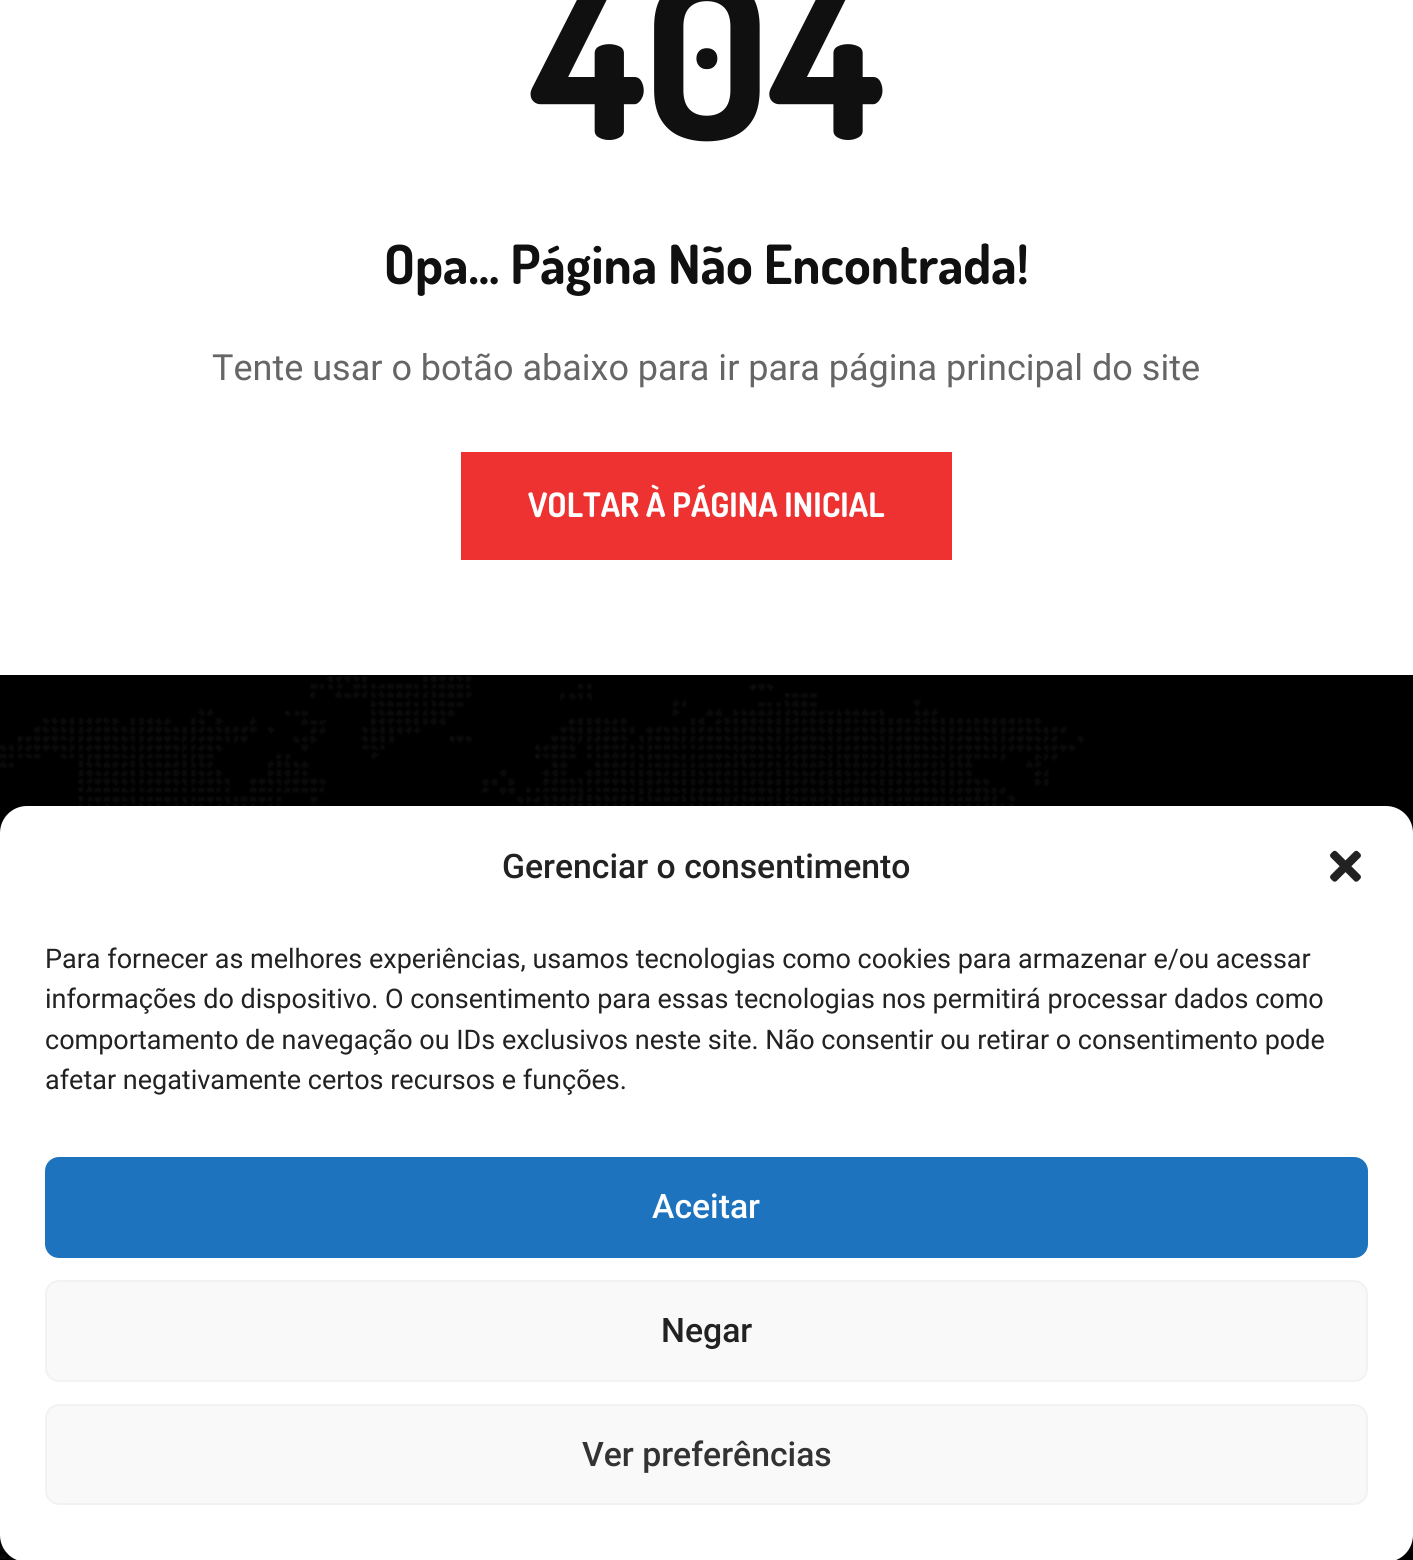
#include <cairo.h>
#include <math.h>
#include <stddef.h>


static void round_rect(cairo_t *cr, double x, double y, double w, double h, double r) {
    cairo_new_sub_path(cr);
    cairo_arc(cr, x + w - r, y + h - r, r, 0, M_PI / 2);
    cairo_arc(cr, x + r, y + h - r, r, M_PI / 2, M_PI);
    cairo_arc(cr, x + r, y + r, r, M_PI, 1.5 * M_PI);
    cairo_arc(cr, x + w - r, y + r, r, 1.5 * M_PI, 2 * M_PI);
    cairo_close_path(cr);
}

static void picture(cairo_t *cr, const char *path, double x, double y, double w, double h) {
    cairo_surface_t *image = cairo_image_surface_create_from_png(path);
    cairo_save(cr);
    cairo_set_source_surface(cr, image, x, y);
    cairo_rectangle(cr, x, y, w, h);
    cairo_fill(cr);
    cairo_restore(cr);
    cairo_surface_destroy(image);
}

int main(void) {
    cairo_surface_t *surface = cairo_image_surface_create(CAIRO_FORMAT_RGB24, 1413, 1560);
    cairo_t *cr = cairo_create(surface);
    cairo_font_options_t *options = cairo_font_options_create();
    cairo_font_options_set_hint_metrics(options, CAIRO_HINT_METRICS_OFF);
    cairo_font_options_set_hint_style(options, CAIRO_HINT_STYLE_NONE);
    cairo_set_font_options(cr, options);
    cairo_set_miter_limit(cr, 4);
    cairo_set_source_rgb(cr, 1, 1, 1);
    cairo_paint(cr);
    cairo_select_font_face(cr, "Dosis", CAIRO_FONT_SLANT_NORMAL, CAIRO_FONT_WEIGHT_BOLD);
    cairo_set_font_size(cr, 225);
    cairo_set_source_rgb(cr, 0.063, 0.063, 0.063);
    cairo_move_to(cr, 531, 140);
    cairo_show_text(cr, "404");
    cairo_set_font_size(cr, 54);
    cairo_move_to(cr, 384, 284);
    cairo_show_text(cr, "Opa... Página Não Encontrada!");
    cairo_select_font_face(cr, "Roboto", CAIRO_FONT_SLANT_NORMAL, CAIRO_FONT_WEIGHT_NORMAL);
    cairo_set_font_size(cr, 36);
    cairo_set_source_rgb(cr, 0.4, 0.4, 0.4);
    cairo_move_to(cr, 212, 380);
    cairo_show_text(cr, "Tente usar o botão abaixo para ir para página principal do site");
    cairo_save(cr);
    cairo_rectangle(cr, 461, 452, 491, 108);
    cairo_clip(cr);
    cairo_set_source_rgb(cr, 0.933, 0.192, 0.192);
    cairo_set_fill_rule(cr, CAIRO_FILL_RULE_EVEN_ODD);
    cairo_new_path(cr);
    cairo_move_to(cr, 461, 382);
    cairo_line_to(cr, 461, 628);
    cairo_line_to(cr, 915, 628);
    cairo_line_to(cr, 953, 564);
    cairo_line_to(cr, 953, 382);
    cairo_close_path(cr);
    cairo_fill(cr);
    cairo_restore(cr);
    cairo_select_font_face(cr, "Dosis", CAIRO_FONT_SLANT_NORMAL, CAIRO_FONT_WEIGHT_BOLD);
    cairo_set_font_size(cr, 33.75);
    cairo_set_source_rgb(cr, 1, 1, 1);
    cairo_move_to(cr, 528, 517);
    cairo_show_text(cr, "VOLTAR À PÁGINA INICIAL");
    cairo_set_source_rgb(cr, 0, 0, 0);
    cairo_rectangle(cr, 0, 675, 1413, 885);
    cairo_fill(cr);
    picture(cr, "img1.png", 0, 676, 1084, 883);
    cairo_set_source_rgb(cr, 1, 1, 1);
    round_rect(cr, 0, 806, 1413, 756, 27);
    cairo_fill(cr);
    cairo_select_font_face(cr, "Roboto Medium", CAIRO_FONT_SLANT_NORMAL, CAIRO_FONT_WEIGHT_NORMAL);
    cairo_set_source_rgb(cr, 0.133, 0.133, 0.133);
    cairo_move_to(cr, 502, 878);
    cairo_show_text(cr, "Gerenciar o consentimento");
    picture(cr, "img2.png", 1330, 850, 31, 32);
    cairo_select_font_face(cr, "Roboto", CAIRO_FONT_SLANT_NORMAL, CAIRO_FONT_WEIGHT_NORMAL);
    cairo_set_font_size(cr, 27);
    cairo_move_to(cr, 45, 968);
    cairo_show_text(cr, "Para fornecer as melhores experiências, usamos tecnologias como cookies para armazenar e/ou acessar");
    cairo_move_to(cr, 45, 1008);
    cairo_show_text(cr, "informações do dispositivo. O consentimento para essas tecnologias nos permitirá processar dados como");
    cairo_move_to(cr, 45, 1049);
    cairo_show_text(cr, "comportamento de navegação ou IDs exclusivos neste site. Não consentir ou retirar o consentimento pode");
    cairo_move_to(cr, 45, 1089);
    cairo_show_text(cr, "afetar negativamente certos recursos e funções.");
    cairo_set_source_rgb(cr, 0.118, 0.451, 0.745);
    round_rect(cr, 46, 1158, 1321, 99, 13);
    cairo_fill_preserve(cr);
    cairo_stroke(cr);
    cairo_select_font_face(cr, "Roboto Medium", CAIRO_FONT_SLANT_NORMAL, CAIRO_FONT_WEIGHT_NORMAL);
    cairo_set_font_size(cr, 33.75);
    cairo_set_source_rgb(cr, 1, 1, 1);
    cairo_move_to(cr, 652, 1218);
    cairo_show_text(cr, "Aceitar");
    cairo_set_source_rgb(cr, 0.976, 0.976, 0.976);
    round_rect(cr, 46, 1281, 1321, 100, 13);
    cairo_fill_preserve(cr);
    cairo_set_source_rgb(cr, 0.949, 0.949, 0.949);
    cairo_stroke(cr);
    cairo_set_source_rgb(cr, 0.133, 0.133, 0.133);
    cairo_move_to(cr, 661, 1342);
    cairo_show_text(cr, "Negar");
    cairo_set_source_rgb(cr, 0.976, 0.976, 0.976);
    round_rect(cr, 46, 1405, 1321, 99, 13);
    cairo_fill_preserve(cr);
    cairo_set_source_rgb(cr, 0.949, 0.949, 0.949);
    cairo_stroke(cr);
    cairo_set_source_rgb(cr, 0.2, 0.2, 0.2);
    cairo_move_to(cr, 582, 1466);
    cairo_show_text(cr, "Ver preferências");
    cairo_surface_write_to_png(surface, "page.png");
    cairo_font_options_destroy(options);
    cairo_destroy(cr);
    cairo_surface_destroy(surface);
    return 0;
}
